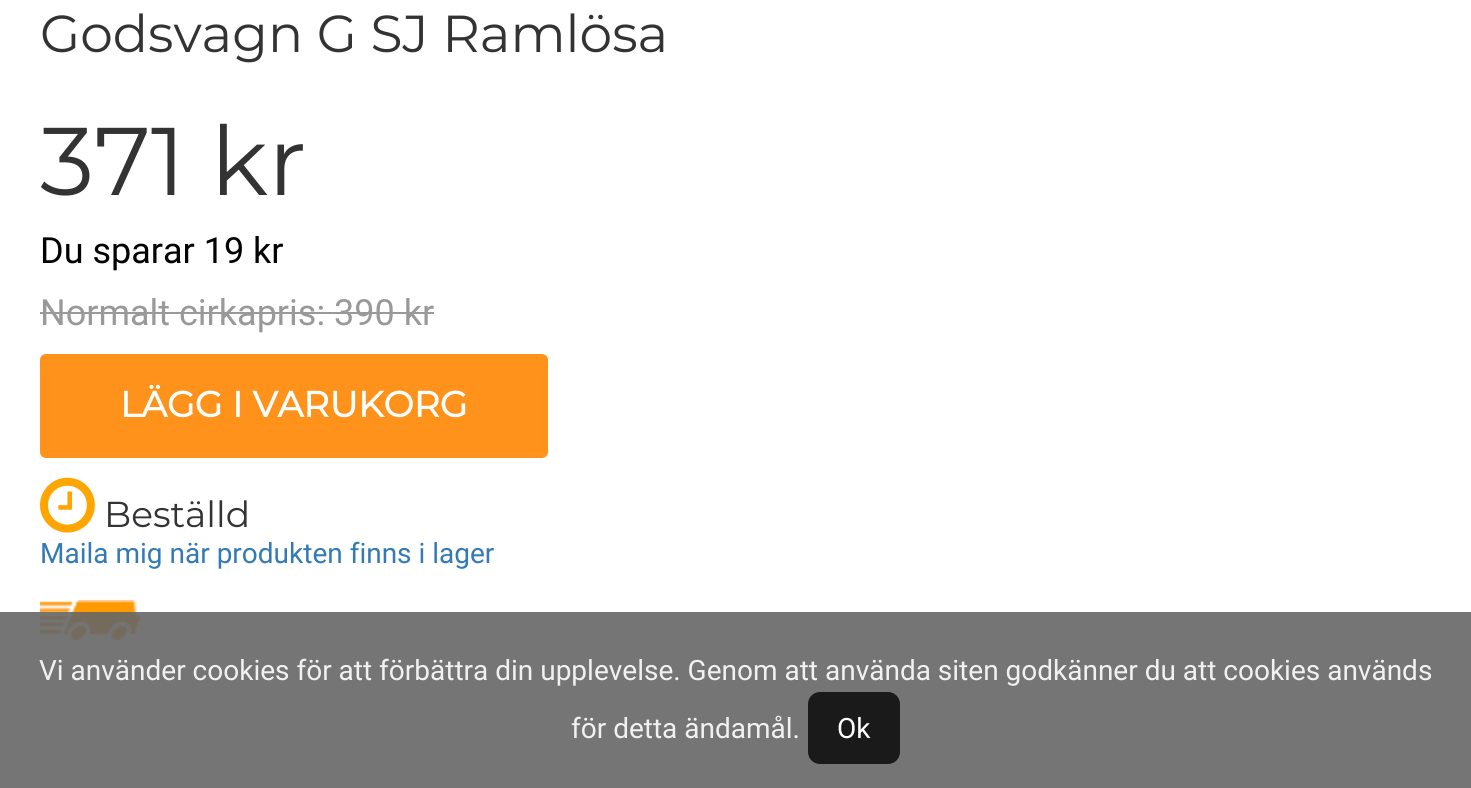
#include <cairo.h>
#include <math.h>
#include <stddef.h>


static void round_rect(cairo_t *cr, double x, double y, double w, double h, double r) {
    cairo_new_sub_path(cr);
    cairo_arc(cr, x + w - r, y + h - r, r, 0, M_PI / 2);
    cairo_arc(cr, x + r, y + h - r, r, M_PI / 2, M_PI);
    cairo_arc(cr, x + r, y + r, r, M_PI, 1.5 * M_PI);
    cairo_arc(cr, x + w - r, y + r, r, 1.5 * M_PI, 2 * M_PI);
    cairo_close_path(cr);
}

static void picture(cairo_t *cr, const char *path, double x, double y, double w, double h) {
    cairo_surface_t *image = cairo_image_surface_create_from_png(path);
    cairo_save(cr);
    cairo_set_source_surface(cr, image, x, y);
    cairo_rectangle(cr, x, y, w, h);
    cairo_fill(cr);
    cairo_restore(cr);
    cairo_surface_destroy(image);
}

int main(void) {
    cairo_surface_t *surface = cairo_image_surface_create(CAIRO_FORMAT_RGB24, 1471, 788);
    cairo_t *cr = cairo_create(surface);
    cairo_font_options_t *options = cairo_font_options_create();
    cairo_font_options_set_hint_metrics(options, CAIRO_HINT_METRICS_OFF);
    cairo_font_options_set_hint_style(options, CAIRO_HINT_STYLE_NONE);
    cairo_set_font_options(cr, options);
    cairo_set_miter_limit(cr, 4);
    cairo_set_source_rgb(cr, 1, 1, 1);
    cairo_paint(cr);
    cairo_select_font_face(cr, "Montserrat Thin", CAIRO_FONT_SLANT_NORMAL, CAIRO_FONT_WEIGHT_NORMAL);
    cairo_set_font_size(cr, 52);
    cairo_set_source_rgb(cr, 0.2, 0.2, 0.2);
    cairo_move_to(cr, 40, 52);
    cairo_show_text(cr, "Godsvagn G SJ Ramlösa");
    cairo_set_font_size(cr, 96);
    cairo_move_to(cr, 40, 195);
    cairo_show_text(cr, "371 kr");
    cairo_select_font_face(cr, "Roboto", CAIRO_FONT_SLANT_NORMAL, CAIRO_FONT_WEIGHT_NORMAL);
    cairo_set_font_size(cr, 36);
    cairo_set_source_rgb(cr, 0, 0, 0);
    cairo_move_to(cr, 40, 263);
    cairo_show_text(cr, "Du sparar 19 kr");
    cairo_set_source_rgb(cr, 0.6, 0.6, 0.6);
    cairo_move_to(cr, 40, 325);
    cairo_show_text(cr, "Normalt cirkapris: 390 kr");
    cairo_rectangle(cr, 40, 312, 394, 2);
    cairo_fill(cr);
    cairo_set_source_rgb(cr, 1, 0.573, 0.102);
    round_rect(cr, 40, 354, 508, 104, 6);
    cairo_fill(cr);
    cairo_select_font_face(cr, "Montserrat", CAIRO_FONT_SLANT_NORMAL, CAIRO_FONT_WEIGHT_BOLD);
    cairo_set_source_rgb(cr, 1, 1, 1);
    cairo_move_to(cr, 120, 417);
    cairo_show_text(cr, "LÄGG I VARUKORG");
    picture(cr, "img1.png", 40, 477, 55, 56);
    cairo_select_font_face(cr, "Montserrat Thin", CAIRO_FONT_SLANT_NORMAL, CAIRO_FONT_WEIGHT_NORMAL);
    cairo_set_source_rgb(cr, 0.2, 0.2, 0.2);
    cairo_move_to(cr, 104, 527);
    cairo_show_text(cr, "Beställd");
    cairo_select_font_face(cr, "Roboto", CAIRO_FONT_SLANT_NORMAL, CAIRO_FONT_WEIGHT_NORMAL);
    cairo_set_font_size(cr, 28);
    cairo_set_source_rgb(cr, 0.2, 0.478, 0.718);
    cairo_move_to(cr, 40, 563);
    cairo_show_text(cr, "Maila mig när produkten finns i lager");
    picture(cr, "img2.png", 40, 600, 100, 40);
    cairo_set_source_rgba(cr, 0.4, 0.4, 0.4, 0.9);
    cairo_rectangle(cr, 0, 612, 1471, 176);
    cairo_fill(cr);
    cairo_set_source_rgb(cr, 0.945, 0.945, 0.945);
    cairo_move_to(cr, 39, 680);
    cairo_show_text(cr, "Vi använder cookies för att förbättra din upplevelse. Genom att använda siten godkänner du att cookies används");
    cairo_move_to(cr, 571, 738);
    cairo_show_text(cr, "för detta ändamål.");
    cairo_set_source_rgb(cr, 0.102, 0.102, 0.102);
    round_rect(cr, 808, 692, 92, 72, 12);
    cairo_fill(cr);
    cairo_set_source_rgb(cr, 1, 1, 1);
    cairo_move_to(cr, 837, 738);
    cairo_show_text(cr, "Ok");
    cairo_surface_write_to_png(surface, "page.png");
    cairo_font_options_destroy(options);
    cairo_destroy(cr);
    cairo_surface_destroy(surface);
    return 0;
}
